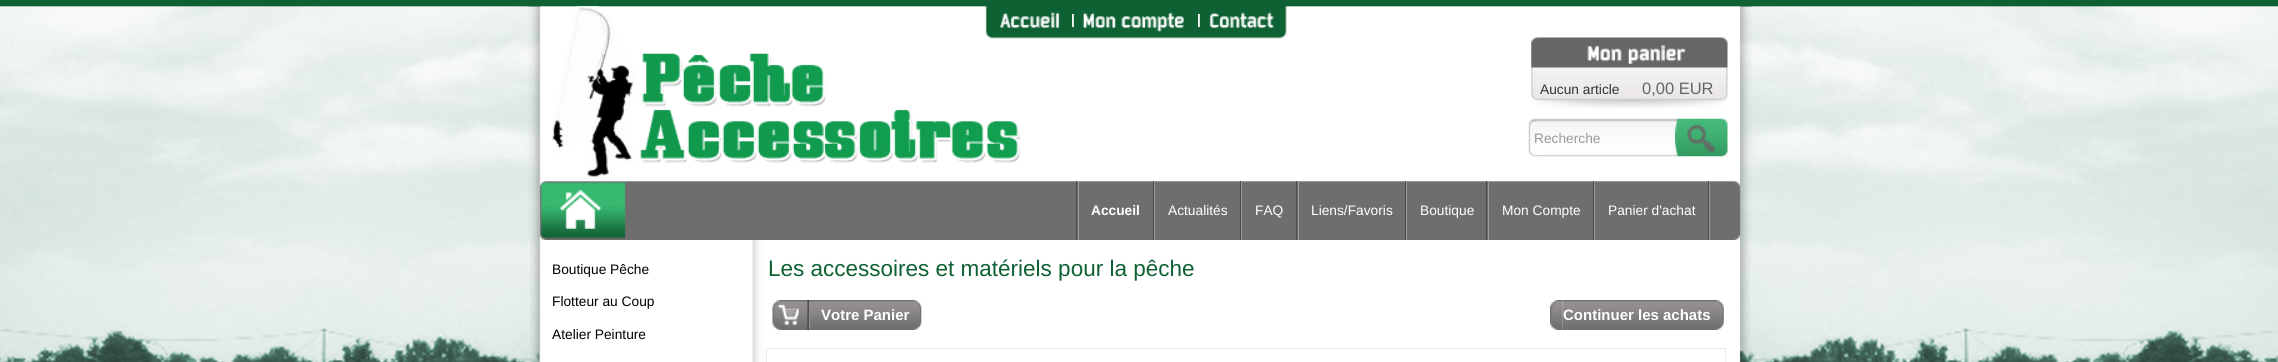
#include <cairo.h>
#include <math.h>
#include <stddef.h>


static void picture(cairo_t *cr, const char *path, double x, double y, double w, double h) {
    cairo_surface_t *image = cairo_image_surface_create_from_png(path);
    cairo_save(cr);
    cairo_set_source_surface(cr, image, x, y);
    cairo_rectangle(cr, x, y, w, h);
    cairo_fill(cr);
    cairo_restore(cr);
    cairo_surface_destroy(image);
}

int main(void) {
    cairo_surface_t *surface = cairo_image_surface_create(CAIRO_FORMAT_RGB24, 2278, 362);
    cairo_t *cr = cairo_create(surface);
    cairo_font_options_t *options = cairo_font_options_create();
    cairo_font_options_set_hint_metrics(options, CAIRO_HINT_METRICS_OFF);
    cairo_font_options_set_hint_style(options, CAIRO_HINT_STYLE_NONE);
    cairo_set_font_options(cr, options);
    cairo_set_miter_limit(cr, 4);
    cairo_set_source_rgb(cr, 1, 1, 1);
    cairo_paint(cr);
    picture(cr, "img1.png", 0, 0, 2278, 362);
    picture(cr, "img2.png", 527, 6, 1226, 234);
    picture(cr, "img3.png", 552, 6, 469, 173);
    picture(cr, "img4.png", 999, 12, 61, 17);
    picture(cr, "img5.png", 1082, 12, 102, 20);
    cairo_select_font_face(cr, "Liberation Sans", CAIRO_FONT_SLANT_NORMAL, CAIRO_FONT_WEIGHT_BOLD);
    cairo_set_font_size(cr, 13.75);
    cairo_set_source_rgb(cr, 1, 1, 1);
    cairo_move_to(cr, 1071, 24);
    cairo_show_text(cr, "|");
    picture(cr, "img6.png", 1209, 12, 65, 17);
    cairo_move_to(cr, 1197, 24);
    cairo_show_text(cr, "|");
    picture(cr, "img7.png", 1528, 118, 149, 39);
    cairo_select_font_face(cr, "Liberation Sans", CAIRO_FONT_SLANT_NORMAL, CAIRO_FONT_WEIGHT_NORMAL);
    cairo_set_source_rgb(cr, 0.6, 0.6, 0.6);
    cairo_move_to(cr, 1534, 143);
    cairo_show_text(cr, "Recherche");
    picture(cr, "img8.png", 1675, 118, 53, 39);
    cairo_set_source_rgb(cr, 0.29, 0.286, 0.286);
    cairo_rectangle(cr, 1076, 181, 1, 59);
    cairo_fill(cr);
    cairo_rectangle(cr, 1153, 181, 1, 59);
    cairo_fill(cr);
    cairo_set_source_rgb(cr, 0.604, 0.6, 0.6);
    cairo_rectangle(cr, 1078, 181, 1, 59);
    cairo_fill(cr);
    cairo_select_font_face(cr, "Liberation Sans", CAIRO_FONT_SLANT_NORMAL, CAIRO_FONT_WEIGHT_BOLD);
    cairo_set_source_rgb(cr, 1, 1, 1);
    cairo_move_to(cr, 1091, 215);
    cairo_show_text(cr, "Accueil");
    cairo_set_source_rgb(cr, 0.29, 0.286, 0.286);
    cairo_rectangle(cr, 1240, 181, 1, 59);
    cairo_fill(cr);
    cairo_set_source_rgb(cr, 0.604, 0.6, 0.6);
    cairo_rectangle(cr, 1154, 181, 1, 59);
    cairo_fill(cr);
    cairo_select_font_face(cr, "Liberation Sans", CAIRO_FONT_SLANT_NORMAL, CAIRO_FONT_WEIGHT_NORMAL);
    cairo_set_source_rgb(cr, 1, 1, 1);
    cairo_move_to(cr, 1168, 215);
    cairo_show_text(cr, "Actualités");
    cairo_set_source_rgb(cr, 0.29, 0.286, 0.286);
    cairo_rectangle(cr, 1296, 181, 1, 59);
    cairo_fill(cr);
    cairo_set_source_rgb(cr, 0.604, 0.6, 0.6);
    cairo_rectangle(cr, 1241, 181, 1, 59);
    cairo_fill(cr);
    cairo_set_source_rgb(cr, 1, 1, 1);
    cairo_move_to(cr, 1255, 215);
    cairo_show_text(cr, "FAQ");
    cairo_set_source_rgb(cr, 0.29, 0.286, 0.286);
    cairo_rectangle(cr, 1405, 181, 1, 59);
    cairo_fill(cr);
    cairo_set_source_rgb(cr, 0.604, 0.6, 0.6);
    cairo_rectangle(cr, 1298, 181, 1, 59);
    cairo_fill(cr);
    cairo_set_source_rgb(cr, 1, 1, 1);
    cairo_move_to(cr, 1311, 215);
    cairo_show_text(cr, "Liens/Favoris");
    cairo_set_source_rgb(cr, 0.29, 0.286, 0.286);
    cairo_rectangle(cr, 1486, 181, 1, 59);
    cairo_fill(cr);
    cairo_set_source_rgb(cr, 0.604, 0.6, 0.6);
    cairo_rectangle(cr, 1406, 181, 1, 59);
    cairo_fill(cr);
    cairo_set_source_rgb(cr, 1, 1, 1);
    cairo_move_to(cr, 1420, 215);
    cairo_show_text(cr, "Boutique");
    cairo_set_source_rgb(cr, 0.29, 0.286, 0.286);
    cairo_rectangle(cr, 1593, 181, 1, 59);
    cairo_fill(cr);
    cairo_set_source_rgb(cr, 0.604, 0.6, 0.6);
    cairo_rectangle(cr, 1488, 181, 1, 59);
    cairo_fill(cr);
    cairo_set_source_rgb(cr, 1, 1, 1);
    cairo_move_to(cr, 1502, 215);
    cairo_show_text(cr, "Mon Compte");
    cairo_set_source_rgb(cr, 0.29, 0.286, 0.286);
    cairo_rectangle(cr, 1708, 181, 1, 59);
    cairo_fill(cr);
    cairo_set_source_rgb(cr, 0.604, 0.6, 0.6);
    cairo_rectangle(cr, 1594, 181, 1, 59);
    cairo_fill(cr);
    cairo_set_source_rgb(cr, 1, 1, 1);
    cairo_move_to(cr, 1608, 215);
    cairo_show_text(cr, "Panier d'achat");
    cairo_set_source_rgb(cr, 0.604, 0.6, 0.6);
    cairo_rectangle(cr, 1709, 181, 1, 59);
    cairo_fill(cr);
    picture(cr, "img9.png", 530, 240, 1220, 122);
    cairo_set_source_rgb(cr, 0, 0, 0);
    cairo_move_to(cr, 552, 274);
    cairo_show_text(cr, "Boutique Pêche");
    cairo_move_to(cr, 552, 306);
    cairo_show_text(cr, "Flotteur au Coup");
    cairo_move_to(cr, 552, 339);
    cairo_show_text(cr, "Atelier Peinture");
    cairo_set_font_size(cr, 22.5);
    cairo_set_source_rgb(cr, 0.055, 0.38, 0.2);
    cairo_move_to(cr, 768, 276);
    cairo_show_text(cr, "Les accessoires et matériels pour la pêche");
    picture(cr, "img10.png", 772, 300, 38, 30);
    picture(cr, "img11.png", 810, 300, 112, 30);
    cairo_select_font_face(cr, "Liberation Sans", CAIRO_FONT_SLANT_NORMAL, CAIRO_FONT_WEIGHT_BOLD);
    cairo_set_font_size(cr, 15);
    cairo_set_source_rgb(cr, 1, 1, 1);
    cairo_move_to(cr, 821, 320);
    cairo_show_text(cr, "Votre Panier");
    picture(cr, "img12.png", 1550, 300, 13, 30);
    picture(cr, "img13.png", 1562, 300, 162, 30);
    cairo_move_to(cr, 1563, 320);
    cairo_show_text(cr, "Continuer les achats");
    cairo_rectangle(cr, 766.5, 348.5, 959, 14);
    cairo_set_source_rgb(cr, 0.922, 0.922, 0.922);
    cairo_set_line_width(cr, 1);
    cairo_stroke(cr);
    picture(cr, "img14.png", 1531, 37, 197, 72);
    cairo_select_font_face(cr, "Liberation Sans", CAIRO_FONT_SLANT_NORMAL, CAIRO_FONT_WEIGHT_NORMAL);
    cairo_set_font_size(cr, 13.75);
    cairo_set_source_rgb(cr, 0.2, 0.2, 0.2);
    cairo_move_to(cr, 1540, 94);
    cairo_show_text(cr, "Aucun article");
    cairo_set_font_size(cr, 16.5);
    cairo_set_source_rgb(cr, 0.4, 0.4, 0.4);
    cairo_move_to(cr, 1642, 94);
    cairo_show_text(cr, "0,00 EUR");
    cairo_surface_write_to_png(surface, "page.png");
    cairo_font_options_destroy(options);
    cairo_destroy(cr);
    cairo_surface_destroy(surface);
    return 0;
}
